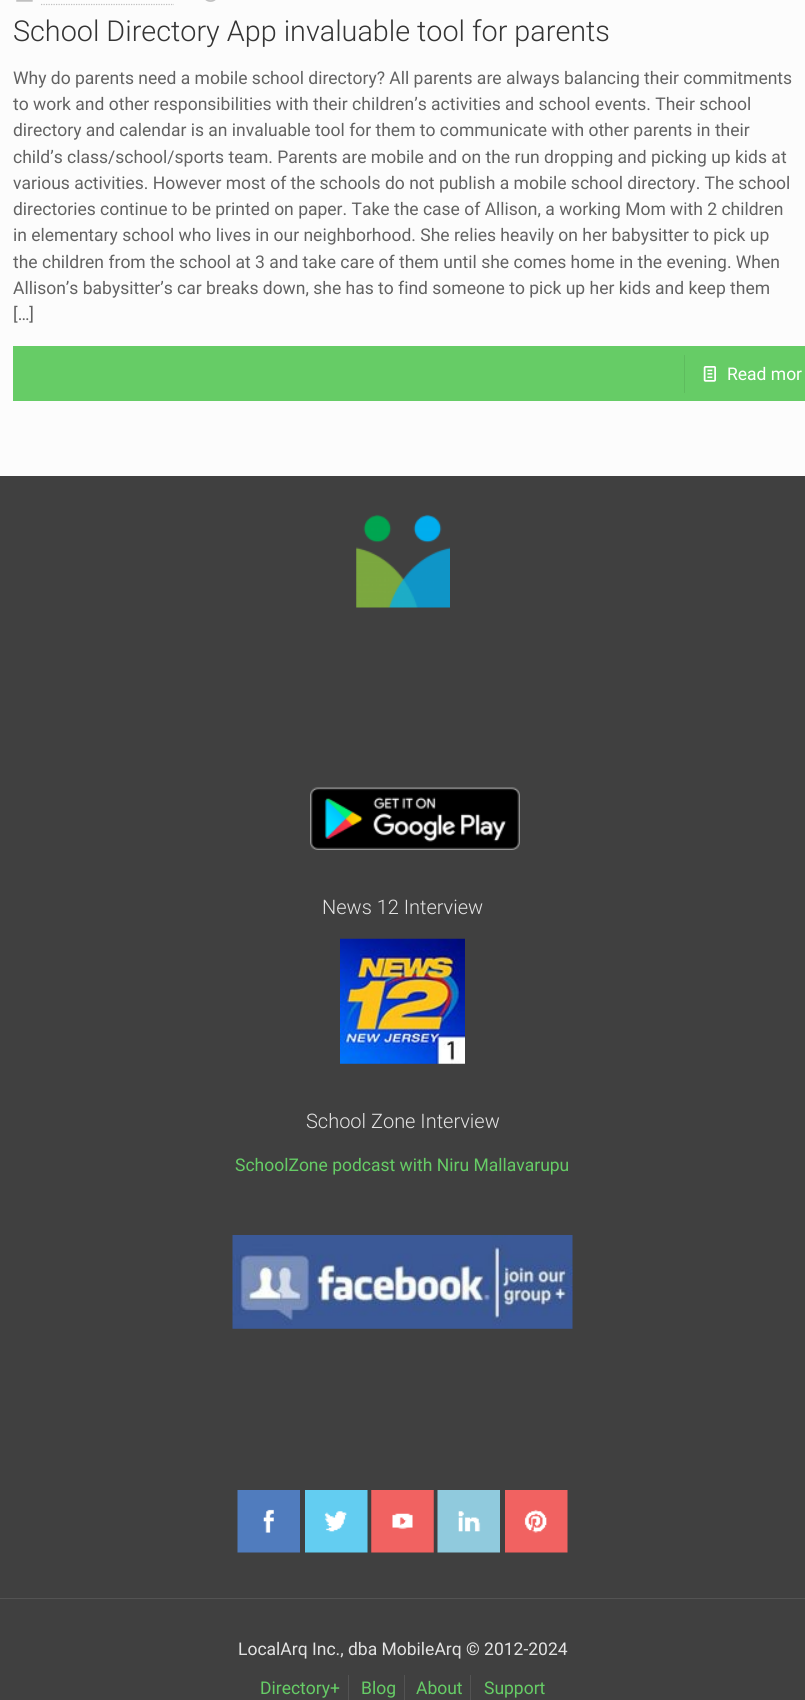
#include <cairo.h>
#include <math.h>
#include <stddef.h>


static void picture(cairo_t *cr, const char *path, double x, double y, double w, double h) {
    cairo_surface_t *image = cairo_image_surface_create_from_png(path);
    cairo_save(cr);
    cairo_set_source_surface(cr, image, x, y);
    cairo_rectangle(cr, x, y, w, h);
    cairo_fill(cr);
    cairo_restore(cr);
    cairo_surface_destroy(image);
}

int main(void) {
    cairo_surface_t *surface = cairo_image_surface_create(CAIRO_FORMAT_RGB24, 805, 1700);
    cairo_t *cr = cairo_create(surface);
    cairo_font_options_t *options = cairo_font_options_create();
    cairo_font_options_set_hint_metrics(options, CAIRO_HINT_METRICS_OFF);
    cairo_font_options_set_hint_style(options, CAIRO_HINT_STYLE_NONE);
    cairo_set_font_options(cr, options);
    cairo_set_miter_limit(cr, 4);
    cairo_set_source_rgb(cr, 0.988, 0.988, 0.988);
    cairo_paint(cr);
    picture(cr, "img1.png", 16, 0, 17, 2);
    cairo_new_path(cr);
    cairo_move_to(cr, 41, 4.5);
    cairo_line_to(cr, 174, 4.5);
    cairo_set_source_rgb(cr, 0.753, 0.753, 0.753);
    cairo_set_line_width(cr, 1.2);
    cairo_set_dash(cr, (double[]){1.25, 1.25}, 2, 0);
    cairo_stroke(cr);
    picture(cr, "img2.png", 205, 0, 11, 2);
    cairo_select_font_face(cr, "Roboto Light", CAIRO_FONT_SLANT_NORMAL, CAIRO_FONT_WEIGHT_NORMAL);
    cairo_set_font_size(cr, 28.75);
    cairo_set_source_rgb(cr, 0.204, 0.204, 0.204);
    cairo_move_to(cr, 13, 41);
    cairo_show_text(cr, "School Directory App invaluable tool for parents");
    cairo_select_font_face(cr, "Roboto", CAIRO_FONT_SLANT_NORMAL, CAIRO_FONT_WEIGHT_NORMAL);
    cairo_set_font_size(cr, 17.5);
    cairo_set_source_rgb(cr, 0.384, 0.384, 0.384);
    cairo_move_to(cr, 13, 84);
    cairo_show_text(cr, "Why do parents need a mobile school directory? All parents are always balancing their commitments");
    cairo_move_to(cr, 13, 110);
    cairo_show_text(cr, "to work and other responsibilities with their children’s activities and school events. Their school");
    cairo_move_to(cr, 13, 136);
    cairo_show_text(cr, "directory and calendar is an invaluable tool for them to communicate with other parents in their");
    cairo_move_to(cr, 13, 163);
    cairo_show_text(cr, "child’s class/school/sports team. Parents are mobile and on the run dropping and picking up kids at");
    cairo_move_to(cr, 13, 189);
    cairo_show_text(cr, "various activities. However most of the schools do not publish a mobile school directory. The school");
    cairo_move_to(cr, 13, 215);
    cairo_show_text(cr, "directories continue to be printed on paper. Take the case of Allison, a working Mom with 2 children");
    cairo_move_to(cr, 13, 241);
    cairo_show_text(cr, "in elementary school who lives in our neighborhood. She relies heavily on her babysitter to pick up");
    cairo_move_to(cr, 13, 268);
    cairo_show_text(cr, "the children from the school at 3 and take care of them until she comes home in the evening. When");
    cairo_move_to(cr, 13, 294);
    cairo_show_text(cr, "Allison’s babysitter’s car breaks down, she has to find someone to pick up her kids and keep them");
    cairo_move_to(cr, 13, 320);
    cairo_show_text(cr, "[…]");
    cairo_set_source_rgb(cr, 0.4, 0.8, 0.4);
    cairo_rectangle(cr, 13, 346, 792, 55);
    cairo_fill(cr);
    cairo_set_source_rgb(cr, 0.369, 0.737, 0.369);
    cairo_rectangle(cr, 684, 355, 1, 38);
    cairo_fill(cr);
    picture(cr, "img3.png", 703, 366, 13, 16);
    cairo_set_source_rgb(cr, 1, 1, 1);
    cairo_move_to(cr, 727, 380);
    cairo_show_text(cr, "Read mor");
    cairo_set_source_rgb(cr, 0.251, 0.251, 0.251);
    cairo_rectangle(cr, 0, 476, 805, 1224);
    cairo_fill(cr);
    picture(cr, "img4.png", 356, 514, 94, 94);
    picture(cr, "img5.png", 310, 787, 210, 63);
    cairo_select_font_face(cr, "Roboto Light", CAIRO_FONT_SLANT_NORMAL, CAIRO_FONT_WEIGHT_NORMAL);
    cairo_set_font_size(cr, 20);
    cairo_set_source_rgb(cr, 0.89, 0.89, 0.89);
    cairo_move_to(cr, 322, 914);
    cairo_show_text(cr, "News 12 Interview");
    picture(cr, "img6.png", 340, 938, 125, 126);
    cairo_move_to(cr, 306, 1128);
    cairo_show_text(cr, "School Zone Interview");
    cairo_select_font_face(cr, "Roboto", CAIRO_FONT_SLANT_NORMAL, CAIRO_FONT_WEIGHT_NORMAL);
    cairo_set_font_size(cr, 17.5);
    cairo_set_source_rgb(cr, 0.4, 0.8, 0.4);
    cairo_move_to(cr, 235, 1171);
    cairo_show_text(cr, "SchoolZone podcast with Niru Mallavarupu");
    picture(cr, "img7.png", 232, 1235, 341, 94);
    picture(cr, "img8.png", 237, 1490, 63, 63);
    picture(cr, "img9.png", 305, 1490, 63, 63);
    picture(cr, "img10.png", 371, 1490, 63, 63);
    picture(cr, "img11.png", 437, 1490, 63, 63);
    picture(cr, "img12.png", 505, 1490, 63, 63);
    cairo_set_source_rgb(cr, 0.325, 0.325, 0.325);
    cairo_rectangle(cr, 0, 1598, 805, 1);
    cairo_fill(cr);
    cairo_set_source_rgb(cr, 0.89, 0.89, 0.89);
    cairo_move_to(cr, 238, 1655);
    cairo_show_text(cr, "LocalArq Inc., dba MobileArq © 2012-2024");
    cairo_set_source_rgb(cr, 0.325, 0.325, 0.325);
    cairo_rectangle(cr, 348, 1675, 1, 25);
    cairo_fill(cr);
    cairo_set_source_rgb(cr, 0.4, 0.8, 0.4);
    cairo_move_to(cr, 260, 1694);
    cairo_show_text(cr, "Directory+");
    cairo_set_source_rgb(cr, 0.325, 0.325, 0.325);
    cairo_rectangle(cr, 404, 1675, 1, 25);
    cairo_fill(cr);
    cairo_set_source_rgb(cr, 0.4, 0.8, 0.4);
    cairo_move_to(cr, 361, 1694);
    cairo_show_text(cr, "Blog");
    cairo_set_source_rgb(cr, 0.325, 0.325, 0.325);
    cairo_rectangle(cr, 470, 1675, 1, 25);
    cairo_fill(cr);
    cairo_set_source_rgb(cr, 0.4, 0.8, 0.4);
    cairo_move_to(cr, 416, 1694);
    cairo_show_text(cr, "About");
    cairo_move_to(cr, 484, 1694);
    cairo_show_text(cr, "Support");
    cairo_surface_write_to_png(surface, "page.png");
    cairo_font_options_destroy(options);
    cairo_destroy(cr);
    cairo_surface_destroy(surface);
    return 0;
}
